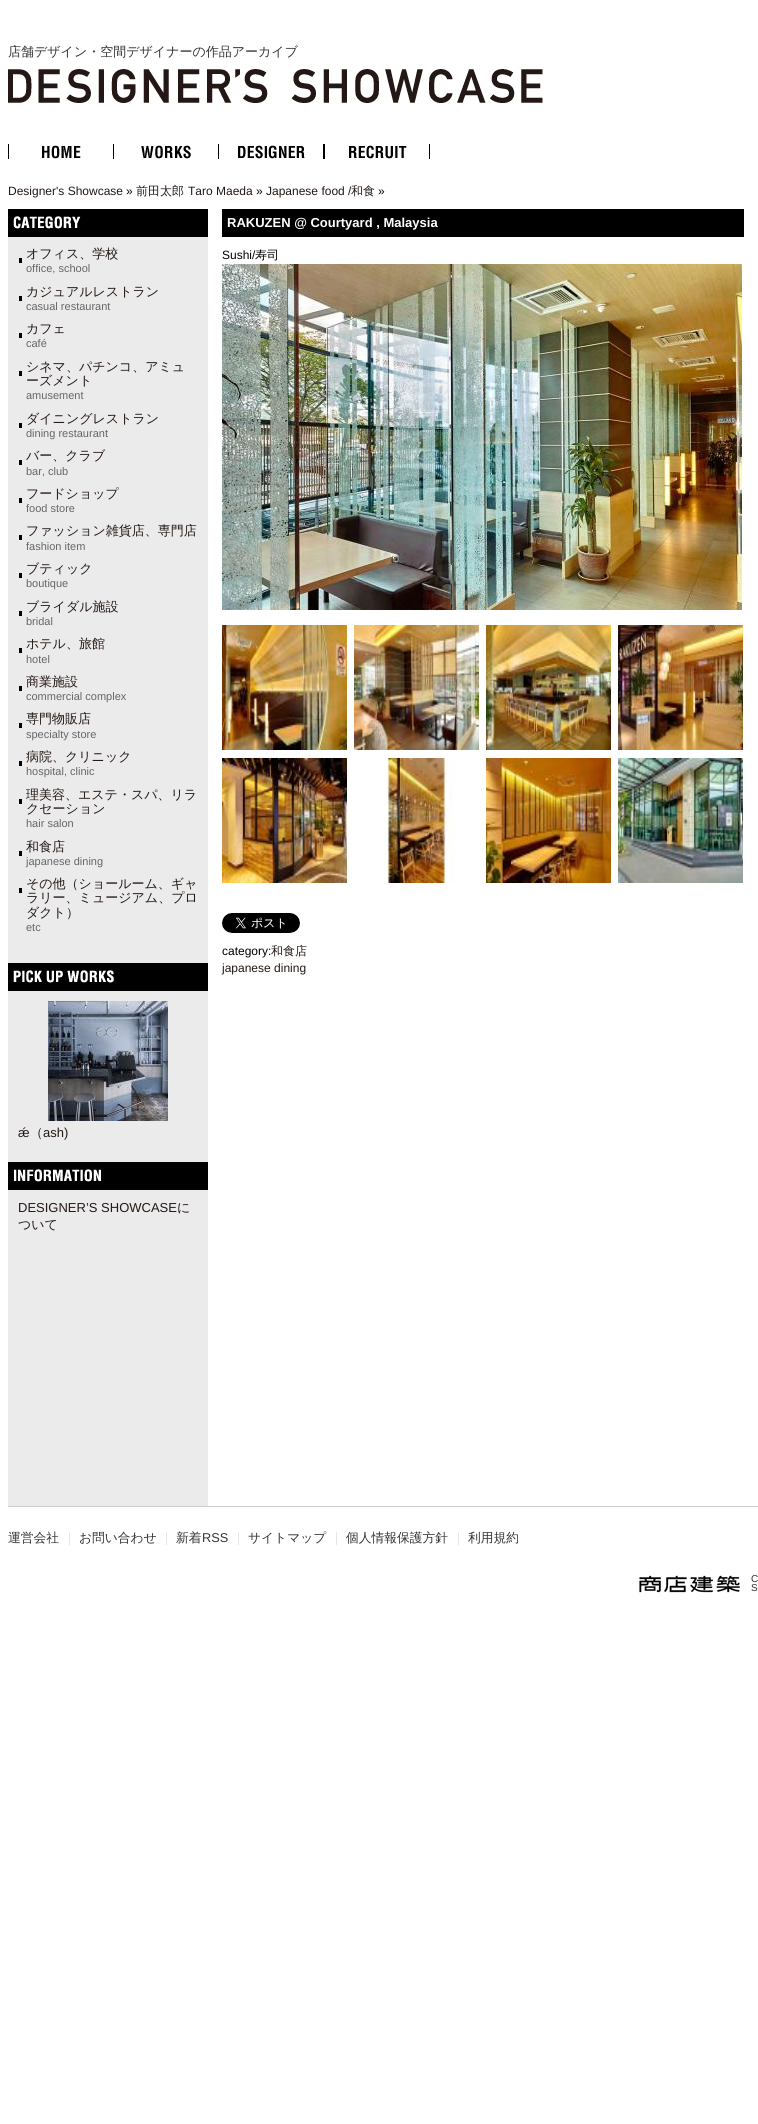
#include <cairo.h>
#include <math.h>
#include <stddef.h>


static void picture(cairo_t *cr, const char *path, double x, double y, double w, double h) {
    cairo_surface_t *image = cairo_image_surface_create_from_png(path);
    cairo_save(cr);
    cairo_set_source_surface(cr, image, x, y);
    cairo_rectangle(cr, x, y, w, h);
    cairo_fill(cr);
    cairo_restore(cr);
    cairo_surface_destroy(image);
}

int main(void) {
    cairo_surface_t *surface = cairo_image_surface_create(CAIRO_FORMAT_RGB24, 758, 2124);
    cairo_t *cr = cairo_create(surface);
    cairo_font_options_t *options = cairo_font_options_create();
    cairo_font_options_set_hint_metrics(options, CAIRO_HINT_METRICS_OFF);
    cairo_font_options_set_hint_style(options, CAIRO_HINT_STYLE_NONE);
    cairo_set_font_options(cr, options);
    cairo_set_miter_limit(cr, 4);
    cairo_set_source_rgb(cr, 1, 1, 1);
    cairo_paint(cr);
    cairo_select_font_face(cr, "WenQuanYi Zen Hei Medium", CAIRO_FONT_SLANT_NORMAL, CAIRO_FONT_WEIGHT_NORMAL);
    cairo_set_font_size(cr, 13);
    cairo_set_source_rgb(cr, 0.2, 0.2, 0.2);
    cairo_move_to(cr, 8, 56);
    cairo_show_text(cr, "店舗デザイン・空間デザイナーの作品アーカイブ");
    picture(cr, "img1.png", 8, 69, 535, 34);
    picture(cr, "img2.png", 8, 144, 73, 15);
    picture(cr, "img3.png", 113, 144, 78, 15);
    picture(cr, "img4.png", 218, 144, 106, 15);
    picture(cr, "img5.png", 324, 144, 106, 15);
    cairo_select_font_face(cr, "Liberation Sans", CAIRO_FONT_SLANT_NORMAL, CAIRO_FONT_WEIGHT_NORMAL);
    cairo_set_font_size(cr, 12);
    cairo_set_source_rgb(cr, 0.137, 0.094, 0.082);
    cairo_move_to(cr, 8, 195);
    cairo_show_text(cr, "Designer's Showcase");
    cairo_set_source_rgb(cr, 0, 0, 0);
    cairo_move_to(cr, 126, 195);
    cairo_show_text(cr, "»");
    cairo_select_font_face(cr, "WenQuanYi Zen Hei Medium", CAIRO_FONT_SLANT_NORMAL, CAIRO_FONT_WEIGHT_NORMAL);
    cairo_set_source_rgb(cr, 0.137, 0.094, 0.082);
    cairo_move_to(cr, 136, 195);
    cairo_show_text(cr, "前田太郎");
    cairo_select_font_face(cr, "Liberation Sans", CAIRO_FONT_SLANT_NORMAL, CAIRO_FONT_WEIGHT_NORMAL);
    cairo_move_to(cr, 188, 195);
    cairo_show_text(cr, "Taro Maeda");
    cairo_set_source_rgb(cr, 0, 0, 0);
    cairo_move_to(cr, 256, 195);
    cairo_show_text(cr, "»");
    cairo_set_source_rgb(cr, 0.137, 0.094, 0.082);
    cairo_move_to(cr, 266, 195);
    cairo_show_text(cr, "Japanese food /");
    cairo_select_font_face(cr, "WenQuanYi Zen Hei Medium", CAIRO_FONT_SLANT_NORMAL, CAIRO_FONT_WEIGHT_NORMAL);
    cairo_move_to(cr, 351, 195);
    cairo_show_text(cr, "和食");
    cairo_select_font_face(cr, "Liberation Sans", CAIRO_FONT_SLANT_NORMAL, CAIRO_FONT_WEIGHT_NORMAL);
    cairo_set_source_rgb(cr, 0, 0, 0);
    cairo_move_to(cr, 378, 195);
    cairo_show_text(cr, "»");
    cairo_set_source_rgb(cr, 0.918, 0.918, 0.918);
    cairo_rectangle(cr, 8, 237, 200, 1269);
    cairo_fill(cr);
    picture(cr, "img6.png", 8, 209, 200, 28);
    cairo_set_source_rgb(cr, 0, 0, 0);
    cairo_rectangle(cr, 19, 258, 3, 5);
    cairo_fill(cr);
    cairo_select_font_face(cr, "WenQuanYi Zen Hei Medium", CAIRO_FONT_SLANT_NORMAL, CAIRO_FONT_WEIGHT_NORMAL);
    cairo_set_font_size(cr, 13);
    cairo_set_source_rgb(cr, 0.137, 0.094, 0.082);
    cairo_move_to(cr, 26, 258);
    cairo_show_text(cr, "オフィス、学校");
    cairo_select_font_face(cr, "Liberation Sans", CAIRO_FONT_SLANT_NORMAL, CAIRO_FONT_WEIGHT_NORMAL);
    cairo_set_font_size(cr, 11);
    cairo_set_source_rgb(cr, 0.4, 0.4, 0.4);
    cairo_move_to(cr, 26, 272);
    cairo_show_text(cr, "office, school");
    cairo_set_source_rgb(cr, 0, 0, 0);
    cairo_rectangle(cr, 19, 296, 3, 5);
    cairo_fill(cr);
    cairo_select_font_face(cr, "WenQuanYi Zen Hei Medium", CAIRO_FONT_SLANT_NORMAL, CAIRO_FONT_WEIGHT_NORMAL);
    cairo_set_font_size(cr, 13);
    cairo_set_source_rgb(cr, 0.137, 0.094, 0.082);
    cairo_move_to(cr, 26, 296);
    cairo_show_text(cr, "カジュアルレストラン");
    cairo_select_font_face(cr, "Liberation Sans", CAIRO_FONT_SLANT_NORMAL, CAIRO_FONT_WEIGHT_NORMAL);
    cairo_set_font_size(cr, 11);
    cairo_set_source_rgb(cr, 0.4, 0.4, 0.4);
    cairo_move_to(cr, 26, 310);
    cairo_show_text(cr, "casual restaurant");
    cairo_set_source_rgb(cr, 0, 0, 0);
    cairo_rectangle(cr, 19, 333, 3, 5);
    cairo_fill(cr);
    cairo_select_font_face(cr, "WenQuanYi Zen Hei Medium", CAIRO_FONT_SLANT_NORMAL, CAIRO_FONT_WEIGHT_NORMAL);
    cairo_set_font_size(cr, 13);
    cairo_set_source_rgb(cr, 0.137, 0.094, 0.082);
    cairo_move_to(cr, 26, 333);
    cairo_show_text(cr, "カフェ");
    cairo_select_font_face(cr, "Liberation Sans", CAIRO_FONT_SLANT_NORMAL, CAIRO_FONT_WEIGHT_NORMAL);
    cairo_set_font_size(cr, 11);
    cairo_set_source_rgb(cr, 0.4, 0.4, 0.4);
    cairo_move_to(cr, 26, 347);
    cairo_show_text(cr, "café");
    cairo_set_source_rgb(cr, 0, 0, 0);
    cairo_rectangle(cr, 19, 371, 3, 5);
    cairo_fill(cr);
    cairo_select_font_face(cr, "WenQuanYi Zen Hei Medium", CAIRO_FONT_SLANT_NORMAL, CAIRO_FONT_WEIGHT_NORMAL);
    cairo_set_font_size(cr, 13);
    cairo_set_source_rgb(cr, 0.137, 0.094, 0.082);
    cairo_move_to(cr, 26, 371);
    cairo_show_text(cr, "シネマ、パチンコ、アミュ");
    cairo_move_to(cr, 26, 385);
    cairo_show_text(cr, "ーズメント");
    cairo_select_font_face(cr, "Liberation Sans", CAIRO_FONT_SLANT_NORMAL, CAIRO_FONT_WEIGHT_NORMAL);
    cairo_set_font_size(cr, 11);
    cairo_set_source_rgb(cr, 0.4, 0.4, 0.4);
    cairo_move_to(cr, 26, 399);
    cairo_show_text(cr, "amusement");
    cairo_set_source_rgb(cr, 0, 0, 0);
    cairo_rectangle(cr, 19, 423, 3, 5);
    cairo_fill(cr);
    cairo_select_font_face(cr, "WenQuanYi Zen Hei Medium", CAIRO_FONT_SLANT_NORMAL, CAIRO_FONT_WEIGHT_NORMAL);
    cairo_set_font_size(cr, 13);
    cairo_set_source_rgb(cr, 0.137, 0.094, 0.082);
    cairo_move_to(cr, 26, 423);
    cairo_show_text(cr, "ダイニングレストラン");
    cairo_select_font_face(cr, "Liberation Sans", CAIRO_FONT_SLANT_NORMAL, CAIRO_FONT_WEIGHT_NORMAL);
    cairo_set_font_size(cr, 11);
    cairo_set_source_rgb(cr, 0.4, 0.4, 0.4);
    cairo_move_to(cr, 26, 437);
    cairo_show_text(cr, "dining restaurant");
    cairo_set_source_rgb(cr, 0, 0, 0);
    cairo_rectangle(cr, 19, 460, 3, 5);
    cairo_fill(cr);
    cairo_select_font_face(cr, "WenQuanYi Zen Hei Medium", CAIRO_FONT_SLANT_NORMAL, CAIRO_FONT_WEIGHT_NORMAL);
    cairo_set_font_size(cr, 13);
    cairo_set_source_rgb(cr, 0.137, 0.094, 0.082);
    cairo_move_to(cr, 26, 460);
    cairo_show_text(cr, "バー、クラブ");
    cairo_select_font_face(cr, "Liberation Sans", CAIRO_FONT_SLANT_NORMAL, CAIRO_FONT_WEIGHT_NORMAL);
    cairo_set_font_size(cr, 11);
    cairo_set_source_rgb(cr, 0.4, 0.4, 0.4);
    cairo_move_to(cr, 26, 475);
    cairo_show_text(cr, "bar, club");
    cairo_set_source_rgb(cr, 0, 0, 0);
    cairo_rectangle(cr, 19, 498, 3, 5);
    cairo_fill(cr);
    cairo_select_font_face(cr, "WenQuanYi Zen Hei Medium", CAIRO_FONT_SLANT_NORMAL, CAIRO_FONT_WEIGHT_NORMAL);
    cairo_set_font_size(cr, 13);
    cairo_set_source_rgb(cr, 0.137, 0.094, 0.082);
    cairo_move_to(cr, 26, 498);
    cairo_show_text(cr, "フードショップ");
    cairo_select_font_face(cr, "Liberation Sans", CAIRO_FONT_SLANT_NORMAL, CAIRO_FONT_WEIGHT_NORMAL);
    cairo_set_font_size(cr, 11);
    cairo_set_source_rgb(cr, 0.4, 0.4, 0.4);
    cairo_move_to(cr, 26, 512);
    cairo_show_text(cr, "food store");
    cairo_set_source_rgb(cr, 0, 0, 0);
    cairo_rectangle(cr, 19, 535, 3, 5);
    cairo_fill(cr);
    cairo_select_font_face(cr, "WenQuanYi Zen Hei Medium", CAIRO_FONT_SLANT_NORMAL, CAIRO_FONT_WEIGHT_NORMAL);
    cairo_set_font_size(cr, 13);
    cairo_set_source_rgb(cr, 0.137, 0.094, 0.082);
    cairo_move_to(cr, 26, 535);
    cairo_show_text(cr, "ファッション雑貨店、専門店");
    cairo_select_font_face(cr, "Liberation Sans", CAIRO_FONT_SLANT_NORMAL, CAIRO_FONT_WEIGHT_NORMAL);
    cairo_set_font_size(cr, 11);
    cairo_set_source_rgb(cr, 0.4, 0.4, 0.4);
    cairo_move_to(cr, 26, 550);
    cairo_show_text(cr, "fashion item");
    cairo_set_source_rgb(cr, 0, 0, 0);
    cairo_rectangle(cr, 19, 573, 3, 5);
    cairo_fill(cr);
    cairo_select_font_face(cr, "WenQuanYi Zen Hei Medium", CAIRO_FONT_SLANT_NORMAL, CAIRO_FONT_WEIGHT_NORMAL);
    cairo_set_font_size(cr, 13);
    cairo_set_source_rgb(cr, 0.137, 0.094, 0.082);
    cairo_move_to(cr, 26, 573);
    cairo_show_text(cr, "ブティック");
    cairo_select_font_face(cr, "Liberation Sans", CAIRO_FONT_SLANT_NORMAL, CAIRO_FONT_WEIGHT_NORMAL);
    cairo_set_font_size(cr, 11);
    cairo_set_source_rgb(cr, 0.4, 0.4, 0.4);
    cairo_move_to(cr, 26, 587);
    cairo_show_text(cr, "boutique");
    cairo_set_source_rgb(cr, 0, 0, 0);
    cairo_rectangle(cr, 19, 611, 3, 5);
    cairo_fill(cr);
    cairo_select_font_face(cr, "WenQuanYi Zen Hei Medium", CAIRO_FONT_SLANT_NORMAL, CAIRO_FONT_WEIGHT_NORMAL);
    cairo_set_font_size(cr, 13);
    cairo_set_source_rgb(cr, 0.137, 0.094, 0.082);
    cairo_move_to(cr, 26, 611);
    cairo_show_text(cr, "ブライダル施設");
    cairo_select_font_face(cr, "Liberation Sans", CAIRO_FONT_SLANT_NORMAL, CAIRO_FONT_WEIGHT_NORMAL);
    cairo_set_font_size(cr, 11);
    cairo_set_source_rgb(cr, 0.4, 0.4, 0.4);
    cairo_move_to(cr, 26, 625);
    cairo_show_text(cr, "bridal");
    cairo_set_source_rgb(cr, 0, 0, 0);
    cairo_rectangle(cr, 19, 648, 3, 5);
    cairo_fill(cr);
    cairo_select_font_face(cr, "WenQuanYi Zen Hei Medium", CAIRO_FONT_SLANT_NORMAL, CAIRO_FONT_WEIGHT_NORMAL);
    cairo_set_font_size(cr, 13);
    cairo_set_source_rgb(cr, 0.137, 0.094, 0.082);
    cairo_move_to(cr, 26, 648);
    cairo_show_text(cr, "ホテル、旅館");
    cairo_select_font_face(cr, "Liberation Sans", CAIRO_FONT_SLANT_NORMAL, CAIRO_FONT_WEIGHT_NORMAL);
    cairo_set_font_size(cr, 11);
    cairo_set_source_rgb(cr, 0.4, 0.4, 0.4);
    cairo_move_to(cr, 26, 663);
    cairo_show_text(cr, "hotel");
    cairo_set_source_rgb(cr, 0, 0, 0);
    cairo_rectangle(cr, 19, 686, 3, 5);
    cairo_fill(cr);
    cairo_select_font_face(cr, "WenQuanYi Zen Hei Medium", CAIRO_FONT_SLANT_NORMAL, CAIRO_FONT_WEIGHT_NORMAL);
    cairo_set_font_size(cr, 13);
    cairo_set_source_rgb(cr, 0.137, 0.094, 0.082);
    cairo_move_to(cr, 26, 686);
    cairo_show_text(cr, "商業施設");
    cairo_select_font_face(cr, "Liberation Sans", CAIRO_FONT_SLANT_NORMAL, CAIRO_FONT_WEIGHT_NORMAL);
    cairo_set_font_size(cr, 11);
    cairo_set_source_rgb(cr, 0.4, 0.4, 0.4);
    cairo_move_to(cr, 26, 700);
    cairo_show_text(cr, "commercial complex");
    cairo_set_source_rgb(cr, 0, 0, 0);
    cairo_rectangle(cr, 19, 723, 3, 5);
    cairo_fill(cr);
    cairo_select_font_face(cr, "WenQuanYi Zen Hei Medium", CAIRO_FONT_SLANT_NORMAL, CAIRO_FONT_WEIGHT_NORMAL);
    cairo_set_font_size(cr, 13);
    cairo_set_source_rgb(cr, 0.137, 0.094, 0.082);
    cairo_move_to(cr, 26, 723);
    cairo_show_text(cr, "専門物販店");
    cairo_select_font_face(cr, "Liberation Sans", CAIRO_FONT_SLANT_NORMAL, CAIRO_FONT_WEIGHT_NORMAL);
    cairo_set_font_size(cr, 11);
    cairo_set_source_rgb(cr, 0.4, 0.4, 0.4);
    cairo_move_to(cr, 26, 738);
    cairo_show_text(cr, "specialty store");
    cairo_set_source_rgb(cr, 0, 0, 0);
    cairo_rectangle(cr, 19, 761, 3, 5);
    cairo_fill(cr);
    cairo_select_font_face(cr, "WenQuanYi Zen Hei Medium", CAIRO_FONT_SLANT_NORMAL, CAIRO_FONT_WEIGHT_NORMAL);
    cairo_set_font_size(cr, 13);
    cairo_set_source_rgb(cr, 0.137, 0.094, 0.082);
    cairo_move_to(cr, 26, 761);
    cairo_show_text(cr, "病院、クリニック");
    cairo_select_font_face(cr, "Liberation Sans", CAIRO_FONT_SLANT_NORMAL, CAIRO_FONT_WEIGHT_NORMAL);
    cairo_set_font_size(cr, 11);
    cairo_set_source_rgb(cr, 0.4, 0.4, 0.4);
    cairo_move_to(cr, 26, 775);
    cairo_show_text(cr, "hospital, clinic");
    cairo_set_source_rgb(cr, 0, 0, 0);
    cairo_rectangle(cr, 19, 799, 3, 5);
    cairo_fill(cr);
    cairo_select_font_face(cr, "WenQuanYi Zen Hei Medium", CAIRO_FONT_SLANT_NORMAL, CAIRO_FONT_WEIGHT_NORMAL);
    cairo_set_font_size(cr, 13);
    cairo_set_source_rgb(cr, 0.137, 0.094, 0.082);
    cairo_move_to(cr, 26, 799);
    cairo_show_text(cr, "理美容、エステ・スパ、リラ");
    cairo_move_to(cr, 26, 813);
    cairo_show_text(cr, "クセーション");
    cairo_select_font_face(cr, "Liberation Sans", CAIRO_FONT_SLANT_NORMAL, CAIRO_FONT_WEIGHT_NORMAL);
    cairo_set_font_size(cr, 11);
    cairo_set_source_rgb(cr, 0.4, 0.4, 0.4);
    cairo_move_to(cr, 26, 827);
    cairo_show_text(cr, "hair salon");
    cairo_set_source_rgb(cr, 0, 0, 0);
    cairo_rectangle(cr, 19, 851, 3, 5);
    cairo_fill(cr);
    cairo_select_font_face(cr, "WenQuanYi Zen Hei Medium", CAIRO_FONT_SLANT_NORMAL, CAIRO_FONT_WEIGHT_NORMAL);
    cairo_set_font_size(cr, 13);
    cairo_set_source_rgb(cr, 0.137, 0.094, 0.082);
    cairo_move_to(cr, 26, 851);
    cairo_show_text(cr, "和食店");
    cairo_select_font_face(cr, "Liberation Sans", CAIRO_FONT_SLANT_NORMAL, CAIRO_FONT_WEIGHT_NORMAL);
    cairo_set_font_size(cr, 11);
    cairo_set_source_rgb(cr, 0.4, 0.4, 0.4);
    cairo_move_to(cr, 26, 865);
    cairo_show_text(cr, "japanese dining");
    cairo_set_source_rgb(cr, 0, 0, 0);
    cairo_rectangle(cr, 19, 888, 3, 5);
    cairo_fill(cr);
    cairo_select_font_face(cr, "WenQuanYi Zen Hei Medium", CAIRO_FONT_SLANT_NORMAL, CAIRO_FONT_WEIGHT_NORMAL);
    cairo_set_font_size(cr, 13);
    cairo_set_source_rgb(cr, 0.137, 0.094, 0.082);
    cairo_move_to(cr, 26, 888);
    cairo_show_text(cr, "その他（ショールーム、ギャ");
    cairo_move_to(cr, 26, 902);
    cairo_show_text(cr, "ラリー、ミュージアム、プロ");
    cairo_move_to(cr, 26, 917);
    cairo_show_text(cr, "ダクト）");
    cairo_select_font_face(cr, "Liberation Sans", CAIRO_FONT_SLANT_NORMAL, CAIRO_FONT_WEIGHT_NORMAL);
    cairo_set_font_size(cr, 11);
    cairo_set_source_rgb(cr, 0.4, 0.4, 0.4);
    cairo_move_to(cr, 26, 931);
    cairo_show_text(cr, "etc");
    picture(cr, "img7.png", 8, 963, 200, 28);
    picture(cr, "img8.png", 48, 1001, 120, 120);
    cairo_set_font_size(cr, 13);
    cairo_set_source_rgb(cr, 0.137, 0.094, 0.082);
    cairo_move_to(cr, 18, 1137);
    cairo_show_text(cr, "ǽ");
    cairo_select_font_face(cr, "WenQuanYi Zen Hei Medium", CAIRO_FONT_SLANT_NORMAL, CAIRO_FONT_WEIGHT_NORMAL);
    cairo_move_to(cr, 30, 1137);
    cairo_show_text(cr, "（");
    cairo_select_font_face(cr, "Liberation Sans", CAIRO_FONT_SLANT_NORMAL, CAIRO_FONT_WEIGHT_NORMAL);
    cairo_move_to(cr, 43, 1137);
    cairo_show_text(cr, "ash)");
    picture(cr, "img9.png", 8, 1162, 200, 28);
    cairo_move_to(cr, 18, 1212);
    cairo_show_text(cr, "DESIGNER’S SHOWCASE");
    cairo_select_font_face(cr, "WenQuanYi Zen Hei Medium", CAIRO_FONT_SLANT_NORMAL, CAIRO_FONT_WEIGHT_NORMAL);
    cairo_move_to(cr, 177, 1212);
    cairo_show_text(cr, "に");
    cairo_move_to(cr, 18, 1229);
    cairo_show_text(cr, "ついて");
    cairo_set_source_rgb(cr, 0, 0, 0);
    cairo_rectangle(cr, 222, 209, 522, 28);
    cairo_fill(cr);
    cairo_select_font_face(cr, "Liberation Sans", CAIRO_FONT_SLANT_NORMAL, CAIRO_FONT_WEIGHT_BOLD);
    cairo_set_source_rgb(cr, 1, 1, 1);
    cairo_move_to(cr, 227, 227);
    cairo_show_text(cr, "RAKUZEN @ Courtyard , Malaysia");
    cairo_select_font_face(cr, "Liberation Sans", CAIRO_FONT_SLANT_NORMAL, CAIRO_FONT_WEIGHT_NORMAL);
    cairo_set_font_size(cr, 12);
    cairo_set_source_rgb(cr, 0, 0, 0);
    cairo_move_to(cr, 222, 259);
    cairo_show_text(cr, "Sushi/");
    cairo_select_font_face(cr, "WenQuanYi Zen Hei Medium", CAIRO_FONT_SLANT_NORMAL, CAIRO_FONT_WEIGHT_NORMAL);
    cairo_move_to(cr, 255, 259);
    cairo_show_text(cr, "寿司");
    picture(cr, "img10.png", 222, 264, 520, 346);
    picture(cr, "img11.png", 222, 625, 125, 125);
    picture(cr, "img12.png", 354, 625, 125, 125);
    picture(cr, "img13.png", 486, 625, 125, 125);
    picture(cr, "img14.png", 618, 625, 125, 125);
    picture(cr, "img15.png", 222, 758, 125, 125);
    picture(cr, "img16.png", 354, 758, 125, 125);
    picture(cr, "img17.png", 486, 758, 125, 125);
    picture(cr, "img18.png", 618, 758, 125, 125);
    picture(cr, "img19.png", 222, 913, 78, 20);
    cairo_select_font_face(cr, "Liberation Sans", CAIRO_FONT_SLANT_NORMAL, CAIRO_FONT_WEIGHT_NORMAL);
    cairo_move_to(cr, 222, 955);
    cairo_show_text(cr, "category:");
    cairo_select_font_face(cr, "WenQuanYi Zen Hei Medium", CAIRO_FONT_SLANT_NORMAL, CAIRO_FONT_WEIGHT_NORMAL);
    cairo_set_source_rgb(cr, 0.137, 0.094, 0.082);
    cairo_move_to(cr, 271, 955);
    cairo_show_text(cr, "和食店");
    cairo_select_font_face(cr, "Liberation Sans", CAIRO_FONT_SLANT_NORMAL, CAIRO_FONT_WEIGHT_NORMAL);
    cairo_move_to(cr, 222, 972);
    cairo_show_text(cr, "japanese dining");
    cairo_set_source_rgb(cr, 0.8, 0.8, 0.8);
    cairo_rectangle(cr, 8, 1506, 750, 1);
    cairo_fill(cr);
    cairo_select_font_face(cr, "WenQuanYi Zen Hei Medium", CAIRO_FONT_SLANT_NORMAL, CAIRO_FONT_WEIGHT_NORMAL);
    cairo_set_font_size(cr, 12.75);
    cairo_set_source_rgb(cr, 0.2, 0.2, 0.2);
    cairo_move_to(cr, 8, 1542);
    cairo_show_text(cr, "運営会社");
    cairo_set_source_rgb(cr, 0.863, 0.863, 0.863);
    cairo_move_to(cr, 63, 1542);
    cairo_show_text(cr, "｜");
    cairo_set_source_rgb(cr, 0.2, 0.2, 0.2);
    cairo_move_to(cr, 79, 1542);
    cairo_show_text(cr, "お問い合わせ");
    cairo_set_source_rgb(cr, 0.863, 0.863, 0.863);
    cairo_move_to(cr, 160, 1542);
    cairo_show_text(cr, "｜");
    cairo_set_source_rgb(cr, 0.2, 0.2, 0.2);
    cairo_move_to(cr, 176, 1542);
    cairo_show_text(cr, "新着");
    cairo_select_font_face(cr, "Liberation Sans", CAIRO_FONT_SLANT_NORMAL, CAIRO_FONT_WEIGHT_NORMAL);
    cairo_move_to(cr, 202, 1542);
    cairo_show_text(cr, "RSS");
    cairo_select_font_face(cr, "WenQuanYi Zen Hei Medium", CAIRO_FONT_SLANT_NORMAL, CAIRO_FONT_WEIGHT_NORMAL);
    cairo_set_source_rgb(cr, 0.863, 0.863, 0.863);
    cairo_move_to(cr, 232, 1542);
    cairo_show_text(cr, "｜");
    cairo_set_source_rgb(cr, 0.2, 0.2, 0.2);
    cairo_move_to(cr, 248, 1542);
    cairo_show_text(cr, "サイトマップ");
    cairo_set_source_rgb(cr, 0.863, 0.863, 0.863);
    cairo_move_to(cr, 330, 1542);
    cairo_show_text(cr, "｜");
    cairo_set_source_rgb(cr, 0.2, 0.2, 0.2);
    cairo_move_to(cr, 346, 1542);
    cairo_show_text(cr, "個人情報保護方針");
    cairo_set_source_rgb(cr, 0.863, 0.863, 0.863);
    cairo_move_to(cr, 452, 1542);
    cairo_show_text(cr, "｜");
    cairo_set_source_rgb(cr, 0.2, 0.2, 0.2);
    cairo_move_to(cr, 468, 1542);
    cairo_show_text(cr, "利用規約");
    picture(cr, "img20.png", 639, 1575, 101, 18);
    cairo_select_font_face(cr, "Liberation Sans", CAIRO_FONT_SLANT_NORMAL, CAIRO_FONT_WEIGHT_NORMAL);
    cairo_set_font_size(cr, 10);
    cairo_move_to(cr, 751, 1582);
    cairo_show_text(cr, "C");
    cairo_move_to(cr, 751, 1591);
    cairo_show_text(cr, "S");
    cairo_surface_write_to_png(surface, "page.png");
    cairo_font_options_destroy(options);
    cairo_destroy(cr);
    cairo_surface_destroy(surface);
    return 0;
}
